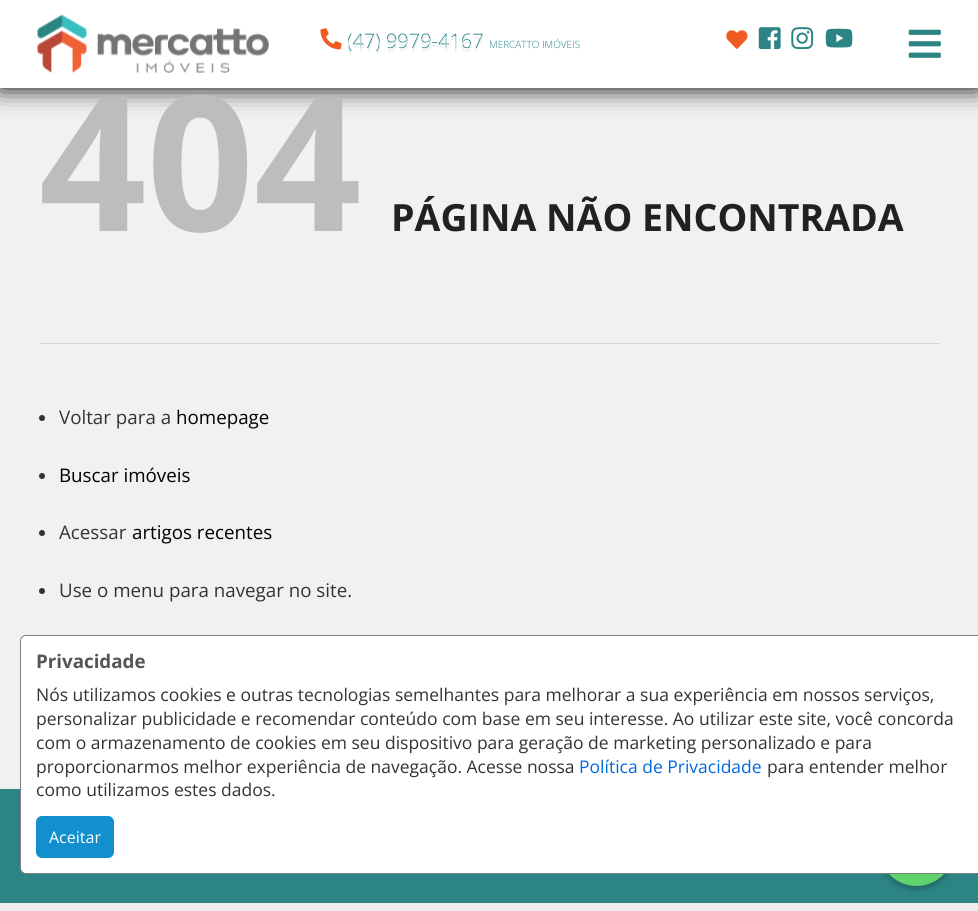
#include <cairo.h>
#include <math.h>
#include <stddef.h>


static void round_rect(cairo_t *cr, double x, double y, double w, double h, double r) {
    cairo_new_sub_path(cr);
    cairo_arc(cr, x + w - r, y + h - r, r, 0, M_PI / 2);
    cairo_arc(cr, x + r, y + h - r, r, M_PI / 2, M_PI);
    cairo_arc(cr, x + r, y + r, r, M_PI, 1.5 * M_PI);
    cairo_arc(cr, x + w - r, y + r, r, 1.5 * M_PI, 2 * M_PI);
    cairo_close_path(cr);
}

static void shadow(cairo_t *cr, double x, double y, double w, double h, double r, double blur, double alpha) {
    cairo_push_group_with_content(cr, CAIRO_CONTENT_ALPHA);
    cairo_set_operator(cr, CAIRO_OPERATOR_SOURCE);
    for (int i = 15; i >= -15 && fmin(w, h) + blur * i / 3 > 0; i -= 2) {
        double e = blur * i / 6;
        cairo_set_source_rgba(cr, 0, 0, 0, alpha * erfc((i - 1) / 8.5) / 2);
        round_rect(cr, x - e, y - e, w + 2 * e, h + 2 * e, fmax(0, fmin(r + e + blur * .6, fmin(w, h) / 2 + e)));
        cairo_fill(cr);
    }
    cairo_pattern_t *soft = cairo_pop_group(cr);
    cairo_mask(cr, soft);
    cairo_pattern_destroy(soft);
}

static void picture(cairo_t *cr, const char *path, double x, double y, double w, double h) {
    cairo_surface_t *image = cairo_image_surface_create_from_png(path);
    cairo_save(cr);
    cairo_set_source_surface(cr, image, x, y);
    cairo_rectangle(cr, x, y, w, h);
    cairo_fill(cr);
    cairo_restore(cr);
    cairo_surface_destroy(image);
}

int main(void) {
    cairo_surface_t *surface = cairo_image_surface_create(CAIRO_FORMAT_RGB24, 978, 911);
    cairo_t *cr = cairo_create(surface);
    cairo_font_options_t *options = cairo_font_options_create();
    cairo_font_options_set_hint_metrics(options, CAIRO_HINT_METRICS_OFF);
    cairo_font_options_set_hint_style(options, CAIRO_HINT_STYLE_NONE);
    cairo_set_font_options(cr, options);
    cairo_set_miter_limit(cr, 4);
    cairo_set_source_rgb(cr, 0.945, 0.945, 0.945);
    cairo_paint(cr);
    cairo_set_source_rgb(cr, 0, 0, 0);
    shadow(cr, 0, 0, 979, 88, 0, 12.5, 1);
    cairo_set_source_rgb(cr, 1, 1, 1);
    cairo_rectangle(cr, 0, 0, 978, 88);
    cairo_fill(cr);
    picture(cr, "img1.png", 37, 14, 232, 59);
    picture(cr, "img2.png", 320, 28, 22, 22);
    cairo_save(cr);
    cairo_rectangle(cr, 348, 26, 318, 29);
    cairo_clip(cr);
    cairo_select_font_face(cr, "Open Sans Light", CAIRO_FONT_SLANT_NORMAL, CAIRO_FONT_WEIGHT_NORMAL);
    cairo_set_font_size(cr, 20);
    cairo_set_source_rgb(cr, 0.173, 0.518, 0.518);
    cairo_move_to(cr, 347, 48);
    cairo_show_text(cr, "(47) 9979-4167");
    cairo_restore(cr);
    cairo_select_font_face(cr, "Open Sans Light", CAIRO_FONT_SLANT_NORMAL, CAIRO_FONT_WEIGHT_NORMAL);
    cairo_set_font_size(cr, 10);
    cairo_set_source_rgb(cr, 0.173, 0.518, 0.518);
    cairo_move_to(cr, 489, 48);
    cairo_show_text(cr, "MERCATTO IMÓVEIS");
    cairo_save(cr);
    cairo_rectangle(cr, 348, 26, 318, 29);
    cairo_clip(cr);
    cairo_set_font_size(cr, 20);
    cairo_set_source_rgb(cr, 0.855, 0.914, 0.914);
    cairo_move_to(cr, 347, 51);
    cairo_show_text(cr, "(47) 9979-4167");
    cairo_restore(cr);
    picture(cr, "img3.png", 726, 30, 22, 19);
    picture(cr, "img4.png", 758, 27, 23, 23);
    picture(cr, "img5.png", 791, 27, 23, 23);
    picture(cr, "img6.png", 825, 28, 28, 20);
    picture(cr, "img7.png", 908, 29, 33, 29);
    cairo_set_source_rgb(cr, 0.831, 0.831, 0.831);
    cairo_rectangle(cr, 40, 343, 900, 1);
    cairo_fill(cr);
    cairo_select_font_face(cr, "Open Sans", CAIRO_FONT_SLANT_NORMAL, CAIRO_FONT_WEIGHT_BOLD);
    cairo_set_font_size(cr, 188);
    cairo_set_source_rgb(cr, 0.741, 0.741, 0.741);
    cairo_move_to(cr, 39, 231);
    cairo_show_text(cr, "404");
    cairo_set_font_size(cr, 37.5);
    cairo_set_source_rgb(cr, 0.129, 0.129, 0.129);
    cairo_move_to(cr, 391, 231);
    cairo_show_text(cr, "PÁGINA NÃO ENCONTRADA");
    cairo_set_source_rgb(cr, 0.2, 0.2, 0.2);
    cairo_new_path(cr);
    cairo_arc(cr, 42, 418, 3, 0, 2 * M_PI);
    cairo_fill(cr);
    cairo_select_font_face(cr, "Open Sans", CAIRO_FONT_SLANT_NORMAL, CAIRO_FONT_WEIGHT_NORMAL);
    cairo_set_font_size(cr, 18.75);
    cairo_move_to(cr, 59, 424);
    cairo_show_text(cr, "Voltar para a");
    cairo_set_source_rgb(cr, 0, 0, 0);
    cairo_move_to(cr, 176, 424);
    cairo_show_text(cr, "homepage");
    cairo_set_source_rgb(cr, 0.2, 0.2, 0.2);
    cairo_new_path(cr);
    cairo_arc(cr, 42, 476, 3, 0, 2 * M_PI);
    cairo_fill(cr);
    cairo_set_source_rgb(cr, 0, 0, 0);
    cairo_move_to(cr, 59, 482);
    cairo_show_text(cr, "Buscar imóveis");
    cairo_set_source_rgb(cr, 0.2, 0.2, 0.2);
    cairo_new_path(cr);
    cairo_arc(cr, 42, 533, 3, 0, 2 * M_PI);
    cairo_fill(cr);
    cairo_move_to(cr, 59, 539);
    cairo_show_text(cr, "Acessar");
    cairo_set_source_rgb(cr, 0, 0, 0);
    cairo_move_to(cr, 132, 539);
    cairo_show_text(cr, "artigos recentes");
    cairo_set_source_rgb(cr, 0.2, 0.2, 0.2);
    cairo_new_path(cr);
    cairo_arc(cr, 42, 591, 3, 0, 2 * M_PI);
    cairo_fill(cr);
    cairo_move_to(cr, 59, 597);
    cairo_show_text(cr, "Use o menu para navegar no site.");
    cairo_set_source_rgb(cr, 0.173, 0.518, 0.518);
    cairo_rectangle(cr, 0, 789, 978, 114);
    cairo_fill(cr);
    cairo_set_source_rgb(cr, 0.933, 0.933, 0.933);
    cairo_rectangle(cr, 0, 903, 978, 8);
    cairo_fill(cr);
    cairo_set_source_rgb(cr, 0, 0, 0);
    shadow(cr, 879, 814, 75, 75, 37.5, 3, 0.26);
    cairo_set_source_rgb(cr, 0.376, 0.827, 0.424);
    cairo_arc(cr, 916.5, 848.5, 37.5, 0, 2 * M_PI);
    cairo_fill(cr);
    cairo_set_source_rgb(cr, 1, 1, 1);
    round_rect(cr, 20.5, 635.5, 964, 238, 5.5);
    cairo_fill_preserve(cr);
    cairo_set_source_rgb(cr, 0.502, 0.502, 0.502);
    cairo_set_line_width(cr, 1);
    cairo_stroke(cr);
    cairo_select_font_face(cr, "Open Sans", CAIRO_FONT_SLANT_NORMAL, CAIRO_FONT_WEIGHT_BOLD);
    cairo_set_source_rgb(cr, 0.333, 0.333, 0.333);
    cairo_move_to(cr, 36, 668);
    cairo_show_text(cr, "Privacidade");
    cairo_select_font_face(cr, "Open Sans", CAIRO_FONT_SLANT_NORMAL, CAIRO_FONT_WEIGHT_NORMAL);
    cairo_set_font_size(cr, 17.5);
    cairo_set_source_rgb(cr, 0.2, 0.2, 0.2);
    cairo_move_to(cr, 36, 701);
    cairo_show_text(cr, "Nós utilizamos cookies e outras tecnologias semelhantes para melhorar a sua experiência em nossos serviços,");
    cairo_move_to(cr, 36, 725);
    cairo_show_text(cr, "personalizar publicidade e recomendar conteúdo com base em seu interesse. Ao utilizar este site, você concorda");
    cairo_move_to(cr, 36, 749);
    cairo_show_text(cr, "com o armazenamento de cookies em seu dispositivo para geração de marketing personalizado e para");
    cairo_move_to(cr, 36, 773);
    cairo_show_text(cr, "proporcionarmos melhor experiência de navegação. Acesse nossa");
    cairo_set_source_rgb(cr, 0, 0.412, 0.871);
    cairo_move_to(cr, 579, 773);
    cairo_show_text(cr, "Política de Privacidade");
    cairo_set_source_rgb(cr, 0.2, 0.2, 0.2);
    cairo_move_to(cr, 767, 773);
    cairo_show_text(cr, "para entender melhor");
    cairo_move_to(cr, 36, 796);
    cairo_show_text(cr, "como utilizamos estes dados.");
    cairo_set_source_rgb(cr, 0.067, 0.565, 0.804);
    round_rect(cr, 36, 816, 78, 42, 6);
    cairo_fill(cr);
    cairo_set_font_size(cr, 16);
    cairo_set_source_rgb(cr, 1, 1, 1);
    cairo_move_to(cr, 49, 843);
    cairo_show_text(cr, "Aceitar");
    cairo_surface_write_to_png(surface, "page.png");
    cairo_font_options_destroy(options);
    cairo_destroy(cr);
    cairo_surface_destroy(surface);
    return 0;
}
